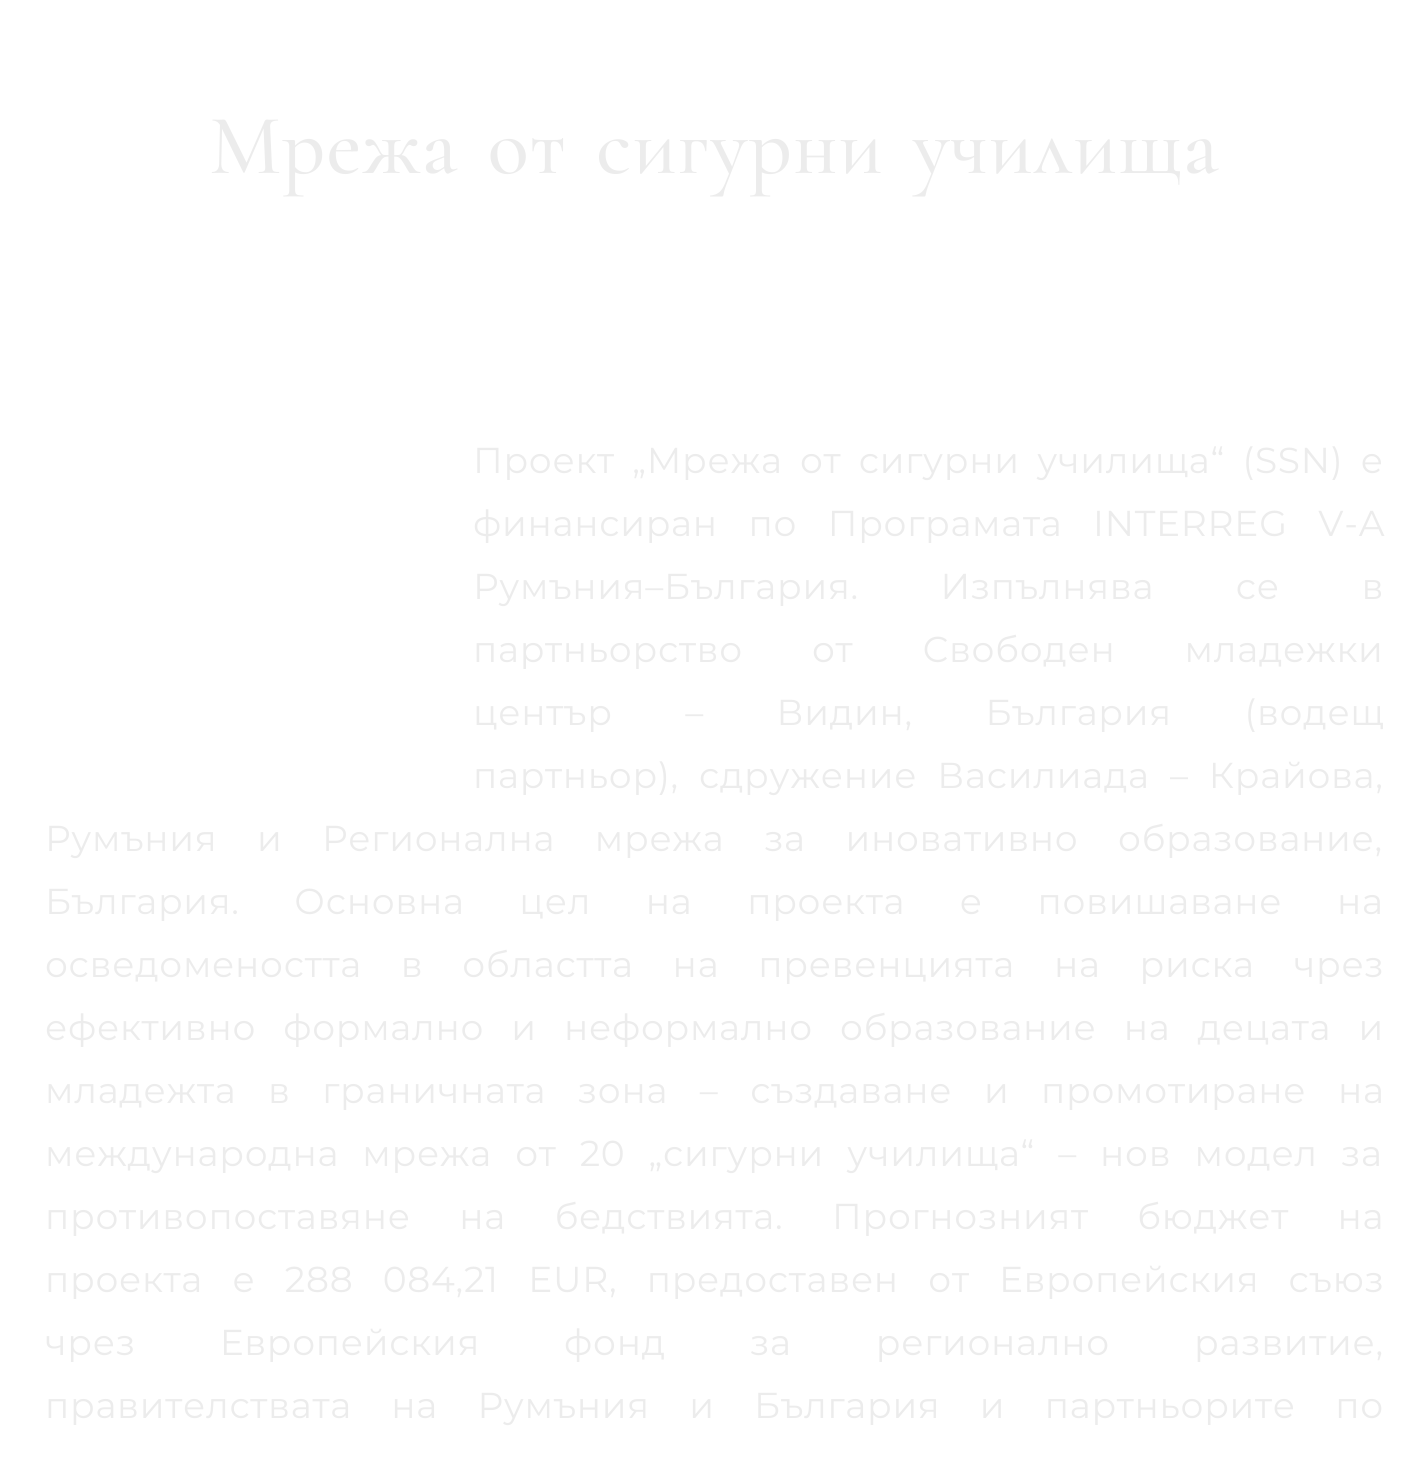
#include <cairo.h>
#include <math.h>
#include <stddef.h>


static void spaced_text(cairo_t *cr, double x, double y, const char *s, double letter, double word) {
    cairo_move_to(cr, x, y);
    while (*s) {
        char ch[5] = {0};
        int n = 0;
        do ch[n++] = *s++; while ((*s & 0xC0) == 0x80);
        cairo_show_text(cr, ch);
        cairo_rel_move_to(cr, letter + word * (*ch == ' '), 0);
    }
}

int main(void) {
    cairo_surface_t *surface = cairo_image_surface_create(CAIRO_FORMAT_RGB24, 1427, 1466);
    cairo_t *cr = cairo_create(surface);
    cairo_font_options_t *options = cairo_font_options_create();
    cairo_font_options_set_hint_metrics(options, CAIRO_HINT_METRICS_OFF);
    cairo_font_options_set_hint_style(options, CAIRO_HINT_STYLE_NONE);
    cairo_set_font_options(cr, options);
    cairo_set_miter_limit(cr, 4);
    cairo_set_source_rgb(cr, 1, 1, 1);
    cairo_paint(cr);
    cairo_select_font_face(cr, "Cormorant Garamond Medium", CAIRO_FONT_SLANT_NORMAL, CAIRO_FONT_WEIGHT_NORMAL);
    cairo_set_font_size(cr, 85.5);
    cairo_set_source_rgb(cr, 0.922, 0.922, 0.922);
    spaced_text(cr, 209, 173, "Мрежа от сигурни училища", 1.1, 8);
    cairo_select_font_face(cr, "Montserrat Thin", CAIRO_FONT_SLANT_NORMAL, CAIRO_FONT_WEIGHT_NORMAL);
    cairo_set_font_size(cr, 36);
    spaced_text(cr, 473, 473, "Проект „Мрежа от сигурни училища“ (SSN) е", 0.72, 7.25);
    spaced_text(cr, 473, 536, "финансиран по Програмата INTERREG V-A", 0.72, 20.5);
    spaced_text(cr, 473, 599, "Румъния–България. Изпълнява се в", 0.72, 71.5);
    spaced_text(cr, 473, 662, "партньорство от Свободен младежки", 0.72, 59);
    spaced_text(cr, 473, 725, "център – Видин, България (водещ", 0.72, 62.5);
    spaced_text(cr, 473, 788, "партньор), сдружение Василиада – Крайова,", 0.72, 10);
    spaced_text(cr, 45, 851, "Румъния и Регионална мрежа за иновативно образование,", 0.72, 29.5);
    spaced_text(cr, 45, 914, "България. Основна цел на проекта е повишаване на", 0.72, 44.5);
    spaced_text(cr, 45, 977, "осведомеността в областта на превенцията на риска чрез", 0.72, 28.75);
    spaced_text(cr, 45, 1040, "ефективно формално и неформално образование на децата и", 0.72, 17);
    spaced_text(cr, 45, 1103, "младежта в граничната зона – създаване и промотиране на", 0.72, 21.5);
    spaced_text(cr, 45, 1166, "международна мрежа от 20 „сигурни училища“ – нов модел за", 0.72, 13);
    spaced_text(cr, 45, 1229, "противопоставяне на бедствията. Прогнозният бюджет на", 0.72, 38.5);
    spaced_text(cr, 45, 1292, "проекта е 288 084,21 EUR, предоставен от Европейския съюз", 0.72, 19.25);
    spaced_text(cr, 45, 1355, "чрез Европейския фонд за регионално развитие,", 0.72, 74);
    spaced_text(cr, 45, 1418, "правителствата на Румъния и България и партньорите по", 0.72, 29.25);
    cairo_surface_write_to_png(surface, "page.png");
    cairo_font_options_destroy(options);
    cairo_destroy(cr);
    cairo_surface_destroy(surface);
    return 0;
}
